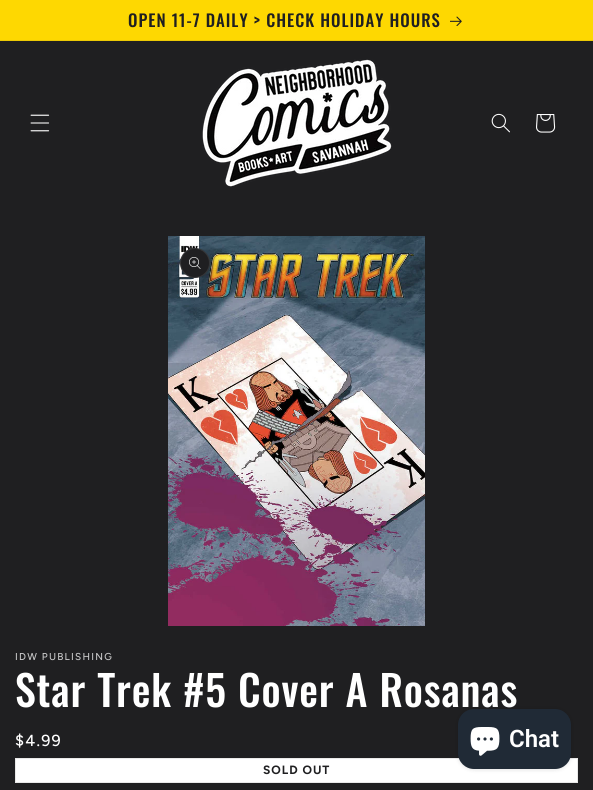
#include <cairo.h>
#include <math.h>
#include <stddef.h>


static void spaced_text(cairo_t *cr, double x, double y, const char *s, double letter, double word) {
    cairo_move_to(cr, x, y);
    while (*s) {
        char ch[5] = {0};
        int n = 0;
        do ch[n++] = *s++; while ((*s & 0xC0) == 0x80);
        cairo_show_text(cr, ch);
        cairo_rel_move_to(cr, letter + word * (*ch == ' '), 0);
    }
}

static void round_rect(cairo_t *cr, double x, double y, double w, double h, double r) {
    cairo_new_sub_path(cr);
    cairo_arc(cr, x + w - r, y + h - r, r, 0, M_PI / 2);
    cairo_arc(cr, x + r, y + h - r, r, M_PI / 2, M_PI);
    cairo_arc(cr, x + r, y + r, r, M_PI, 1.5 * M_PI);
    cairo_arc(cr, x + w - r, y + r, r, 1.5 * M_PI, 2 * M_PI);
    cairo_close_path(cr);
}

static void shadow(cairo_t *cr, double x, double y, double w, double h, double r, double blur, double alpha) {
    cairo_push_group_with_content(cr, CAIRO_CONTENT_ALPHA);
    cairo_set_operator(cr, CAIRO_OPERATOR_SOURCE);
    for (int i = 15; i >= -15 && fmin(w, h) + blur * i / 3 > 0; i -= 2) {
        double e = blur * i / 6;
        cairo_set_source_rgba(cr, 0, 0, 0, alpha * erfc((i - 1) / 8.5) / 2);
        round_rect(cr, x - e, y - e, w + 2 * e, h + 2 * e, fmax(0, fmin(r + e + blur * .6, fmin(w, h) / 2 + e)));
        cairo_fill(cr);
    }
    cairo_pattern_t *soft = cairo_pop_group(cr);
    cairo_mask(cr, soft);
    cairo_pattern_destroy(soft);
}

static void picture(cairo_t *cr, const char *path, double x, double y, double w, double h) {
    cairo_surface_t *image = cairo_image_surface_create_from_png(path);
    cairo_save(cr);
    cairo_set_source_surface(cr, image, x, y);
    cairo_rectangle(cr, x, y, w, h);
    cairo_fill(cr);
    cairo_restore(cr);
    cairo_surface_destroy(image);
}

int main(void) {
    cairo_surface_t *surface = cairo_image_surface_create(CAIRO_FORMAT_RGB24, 593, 790);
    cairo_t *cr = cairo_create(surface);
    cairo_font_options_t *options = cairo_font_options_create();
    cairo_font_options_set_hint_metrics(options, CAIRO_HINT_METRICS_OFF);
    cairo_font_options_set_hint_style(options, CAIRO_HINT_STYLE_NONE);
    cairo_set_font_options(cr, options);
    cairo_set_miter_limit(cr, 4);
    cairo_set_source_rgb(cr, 0.122, 0.122, 0.129);
    cairo_paint(cr);
    cairo_set_source_rgb(cr, 0.996, 0.847, 0.004);
    cairo_rectangle(cr, 0, 0, 593, 40);
    cairo_fill(cr);
    cairo_set_source_rgb(cr, 0.925, 0.788, 0.016);
    cairo_rectangle(cr, 0, 40, 593, 1);
    cairo_fill(cr);
    cairo_select_font_face(cr, "Oswald Medium", CAIRO_FONT_SLANT_NORMAL, CAIRO_FONT_WEIGHT_NORMAL);
    cairo_set_font_size(cr, 16.75);
    cairo_set_source_rgb(cr, 0.122, 0.122, 0.129);
    spaced_text(cr, 128, 27, "OPEN 11-7 DAILY > CHECK HOLIDAY HOURS", 1, 0);
    picture(cr, "img1.png", 450, 16, 12, 10);
    picture(cr, "img2.png", 30, 114, 20, 18);
    picture(cr, "img3.png", 202, 59, 190, 128);
    picture(cr, "img4.png", 491, 113, 19, 20);
    picture(cr, "img5.png", 536, 114, 20, 19);
    picture(cr, "img6.png", 168, 236, 257, 390);
    cairo_arc(cr, 195, 263, 15, 0, 2 * M_PI);
    cairo_fill(cr);
    cairo_arc(cr, 195, 263, 14.5, 0, 2 * M_PI);
    cairo_set_source_rgba(cr, 1, 1, 1, 0.1);
    cairo_set_line_width(cr, 1);
    cairo_stroke(cr);
    picture(cr, "img7.png", 189, 257, 12, 12);
    cairo_select_font_face(cr, "Figtree Medium", CAIRO_FONT_SLANT_NORMAL, CAIRO_FONT_WEIGHT_NORMAL);
    cairo_set_font_size(cr, 10);
    cairo_set_source_rgb(cr, 0.78, 0.78, 0.784);
    spaced_text(cr, 15, 660, "IDW PUBLISHING", 1.25, 0);
    cairo_select_font_face(cr, "Oswald Medium", CAIRO_FONT_SLANT_NORMAL, CAIRO_FONT_WEIGHT_NORMAL);
    cairo_set_font_size(cr, 42);
    cairo_set_source_rgb(cr, 1, 1, 1);
    spaced_text(cr, 15, 707, "Star Trek #5 Cover A Rosanas", 0.85, 0);
    cairo_select_font_face(cr, "Figtree Medium", CAIRO_FONT_SLANT_NORMAL, CAIRO_FONT_WEIGHT_NORMAL);
    cairo_set_font_size(cr, 16);
    spaced_text(cr, 15, 746, "$4.99", 1.25, 0);
    cairo_rectangle(cr, 15.5, 758.5, 562, 24);
    cairo_fill_preserve(cr);
    cairo_set_source_rgb(cr, 0.914, 0.914, 0.914);
    cairo_stroke(cr);
    cairo_select_font_face(cr, "Figtree", CAIRO_FONT_SLANT_NORMAL, CAIRO_FONT_WEIGHT_BOLD);
    cairo_set_font_size(cr, 12);
    cairo_set_source_rgb(cr, 0.122, 0.122, 0.129);
    spaced_text(cr, 263, 774, "SOLD OUT", 1, 0);
    cairo_set_source_rgb(cr, 0, 0, 0);
    shadow(cr, 458, 709, 113, 60, 16, 2.5, 0.15);
    cairo_set_source_rgb(cr, 0.125, 0.165, 0.212);
    round_rect(cr, 458, 709, 113, 60, 16);
    cairo_fill(cr);
    picture(cr, "img8.png", 470, 727, 30, 29);
    cairo_select_font_face(cr, "Roboto SemiBold", CAIRO_FONT_SLANT_NORMAL, CAIRO_FONT_WEIGHT_NORMAL);
    cairo_set_font_size(cr, 24);
    cairo_set_source_rgb(cr, 1, 1, 1);
    cairo_move_to(cr, 509, 747);
    cairo_show_text(cr, "Chat");
    cairo_surface_write_to_png(surface, "page.png");
    cairo_font_options_destroy(options);
    cairo_destroy(cr);
    cairo_surface_destroy(surface);
    return 0;
}
